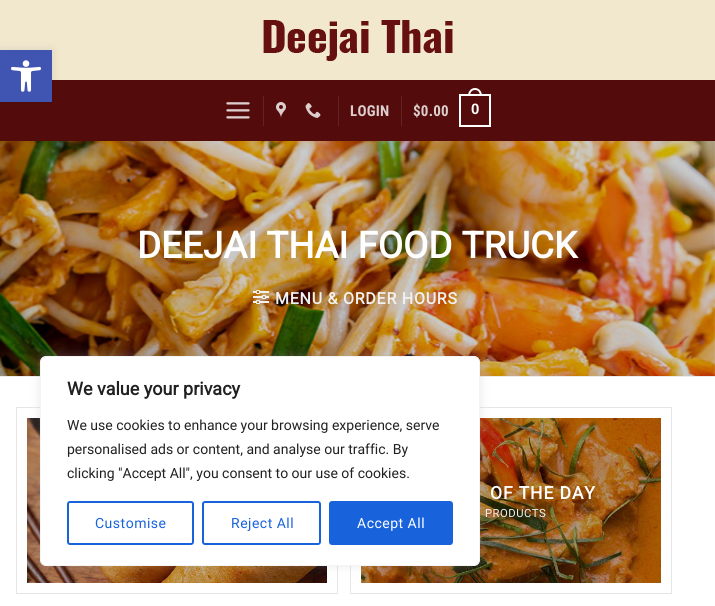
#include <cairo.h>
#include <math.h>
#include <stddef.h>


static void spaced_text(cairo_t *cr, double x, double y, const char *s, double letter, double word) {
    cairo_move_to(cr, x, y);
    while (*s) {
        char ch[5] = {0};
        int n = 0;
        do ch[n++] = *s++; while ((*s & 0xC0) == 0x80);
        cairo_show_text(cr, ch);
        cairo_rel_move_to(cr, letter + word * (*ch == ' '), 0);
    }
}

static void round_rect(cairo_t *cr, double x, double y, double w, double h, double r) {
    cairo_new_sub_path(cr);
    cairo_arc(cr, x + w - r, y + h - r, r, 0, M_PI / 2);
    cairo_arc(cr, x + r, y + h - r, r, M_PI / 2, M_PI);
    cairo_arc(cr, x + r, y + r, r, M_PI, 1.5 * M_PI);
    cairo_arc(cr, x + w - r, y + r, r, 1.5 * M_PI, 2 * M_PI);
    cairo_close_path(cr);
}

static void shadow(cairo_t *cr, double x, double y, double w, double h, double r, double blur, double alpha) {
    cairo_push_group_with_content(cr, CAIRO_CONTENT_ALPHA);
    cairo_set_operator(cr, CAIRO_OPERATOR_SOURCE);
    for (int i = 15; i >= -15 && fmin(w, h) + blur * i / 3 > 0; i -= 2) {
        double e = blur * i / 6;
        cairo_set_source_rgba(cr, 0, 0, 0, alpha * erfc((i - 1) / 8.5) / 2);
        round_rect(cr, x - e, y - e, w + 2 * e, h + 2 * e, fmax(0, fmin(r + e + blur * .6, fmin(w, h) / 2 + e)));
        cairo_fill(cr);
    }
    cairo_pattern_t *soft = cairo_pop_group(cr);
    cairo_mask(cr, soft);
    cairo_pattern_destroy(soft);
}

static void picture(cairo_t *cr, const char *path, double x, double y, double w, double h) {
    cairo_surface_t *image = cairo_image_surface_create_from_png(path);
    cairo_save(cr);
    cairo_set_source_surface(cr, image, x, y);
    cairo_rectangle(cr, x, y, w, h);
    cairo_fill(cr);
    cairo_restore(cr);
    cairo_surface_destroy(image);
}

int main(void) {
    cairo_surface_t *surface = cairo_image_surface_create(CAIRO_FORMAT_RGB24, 715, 606);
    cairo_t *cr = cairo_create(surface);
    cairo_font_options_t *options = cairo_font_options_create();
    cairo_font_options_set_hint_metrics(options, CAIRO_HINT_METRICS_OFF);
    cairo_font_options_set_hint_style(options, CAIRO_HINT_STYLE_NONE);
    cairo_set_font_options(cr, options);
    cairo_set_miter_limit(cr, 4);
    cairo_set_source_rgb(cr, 1, 1, 1);
    cairo_paint(cr);
    cairo_set_source_rgb(cr, 0.945, 0.91, 0.808);
    cairo_rectangle(cr, 0, 0, 715, 80);
    cairo_fill(cr);
    cairo_set_source_rgb(cr, 0.325, 0.047, 0.043);
    cairo_rectangle(cr, 0, 80, 715, 61);
    cairo_fill(cr);
    cairo_set_source_rgb(cr, 0, 0, 0);
    shadow(cr, 0, 50, 52, 52, 0, 5, 0.1);
    cairo_set_source_rgb(cr, 0.251, 0.329, 0.698);
    cairo_rectangle(cr, 0, 50, 52, 52);
    cairo_fill(cr);
    picture(cr, "img1.png", 11, 60, 30, 32);
    picture(cr, "img2.png", 263, 20, 190, 41);
    picture(cr, "img3.png", 226, 102, 24, 17);
    cairo_set_source_rgb(cr, 0.392, 0.141, 0.137);
    cairo_rectangle(cr, 263, 96, 1, 30);
    cairo_fill(cr);
    picture(cr, "img4.png", 276, 102, 10, 16);
    picture(cr, "img5.png", 305, 103, 16, 15);
    cairo_rectangle(cr, 338, 96, 1, 30);
    cairo_fill(cr);
    cairo_select_font_face(cr, "Roboto Condensed", CAIRO_FONT_SLANT_NORMAL, CAIRO_FONT_WEIGHT_BOLD);
    cairo_set_font_size(cr, 15);
    cairo_set_source_rgb(cr, 0.867, 0.808, 0.808);
    spaced_text(cr, 350, 116, "LOGIN", 0.25, 0);
    cairo_set_source_rgb(cr, 0.392, 0.141, 0.137);
    cairo_rectangle(cr, 401, 96, 1, 30);
    cairo_fill(cr);
    cairo_set_source_rgb(cr, 0.867, 0.808, 0.808);
    spaced_text(cr, 413, 116, "$0.00", 0.25, 0);
    cairo_rectangle(cr, 460, 95, 30, 31);
    cairo_set_source_rgb(cr, 1, 1, 1);
    cairo_stroke(cr);
    cairo_set_fill_rule(cr, CAIRO_FILL_RULE_EVEN_ODD);
    cairo_new_path(cr);
    cairo_move_to(cr, 475, 88);
    cairo_curve_to(cr, 479.5, 88, 482, 92, 482, 96);
    cairo_line_to(cr, 468, 96);
    cairo_curve_to(cr, 468, 92, 470.5, 88, 475, 88);
    cairo_close_path(cr);
    cairo_move_to(cr, 475, 90);
    cairo_curve_to(cr, 478.5, 90, 480, 93, 480, 96);
    cairo_line_to(cr, 470, 96);
    cairo_curve_to(cr, 470, 93, 471.5, 90, 475, 90);
    cairo_close_path(cr);
    cairo_fill(cr);
    cairo_select_font_face(cr, "Liberation Sans", CAIRO_FONT_SLANT_NORMAL, CAIRO_FONT_WEIGHT_BOLD);
    spaced_text(cr, 471, 114, "0", 0.25, 0);
    cairo_set_source_rgb(cr, 0.925, 0.925, 0.925);
    cairo_rectangle(cr, 0, 376, 715, 1);
    cairo_fill(cr);
    picture(cr, "img6.png", 0, 141, 715, 235);
    cairo_set_source_rgba(cr, 0, 0, 0, 0.2);
    cairo_rectangle(cr, 0, 141, 715, 235);
    cairo_fill(cr);
    cairo_select_font_face(cr, "Roboto", CAIRO_FONT_SLANT_NORMAL, CAIRO_FONT_WEIGHT_BOLD);
    cairo_set_font_size(cr, 36.75);
    cairo_set_source_rgb(cr, 1, 1, 1);
    cairo_move_to(cr, 137, 258);
    cairo_show_text(cr, "DEEJAI THAI FOOD TRUCK");
    picture(cr, "img7.png", 253, 290, 16, 14);
    cairo_set_font_size(cr, 16);
    cairo_set_source_rgb(cr, 0.945, 0.945, 0.945);
    spaced_text(cr, 275, 304, "MENU & ORDER HOURS", 0.75, 0);
    cairo_rectangle(cr, 16.5, 407.5, 321, 186);
    cairo_set_source_rgb(cr, 0.902, 0.902, 0.902);
    cairo_set_line_width(cr, 1);
    cairo_stroke(cr);
    picture(cr, "img8.png", 27, 418, 300, 165);
    cairo_rectangle(cr, 350.5, 407.5, 321, 186);
    cairo_stroke(cr);
    picture(cr, "img9.png", 361, 418, 300, 165);
    cairo_set_font_size(cr, 17.5);
    cairo_set_source_rgb(cr, 1, 1, 1);
    spaced_text(cr, 490, 499, "OF THE DAY", 0.9, 0);
    cairo_select_font_face(cr, "Roboto", CAIRO_FONT_SLANT_NORMAL, CAIRO_FONT_WEIGHT_NORMAL);
    cairo_set_font_size(cr, 11.25);
    cairo_set_source_rgb(cr, 0.945, 0.945, 0.945);
    spaced_text(cr, 485, 517, "PRODUCTS", 0.5, 0);
    cairo_set_source_rgb(cr, 0.675, 0.671, 0.671);
    shadow(cr, 40, 355, 440, 210, 6, 5, 0.3);
    cairo_set_source_rgb(cr, 1, 1, 1);
    round_rect(cr, 40.5, 356.5, 439, 209, 5.5);
    cairo_fill_preserve(cr);
    cairo_set_source_rgb(cr, 0.957, 0.957, 0.957);
    cairo_stroke(cr);
    cairo_select_font_face(cr, "Roboto", CAIRO_FONT_SLANT_NORMAL, CAIRO_FONT_WEIGHT_BOLD);
    cairo_set_font_size(cr, 18);
    cairo_set_source_rgb(cr, 0.129, 0.129, 0.129);
    cairo_move_to(cr, 67, 395);
    cairo_show_text(cr, "We value your privacy");
    cairo_select_font_face(cr, "Roboto", CAIRO_FONT_SLANT_NORMAL, CAIRO_FONT_WEIGHT_NORMAL);
    cairo_set_font_size(cr, 14);
    cairo_move_to(cr, 67, 430);
    cairo_show_text(cr, "We use cookies to enhance your browsing experience, serve");
    cairo_move_to(cr, 67, 454);
    cairo_show_text(cr, "personalised ads or content, and analyse our traffic. By");
    cairo_move_to(cr, 67, 478);
    cairo_show_text(cr, "clicking \"Accept All\", you consent to our use of cookies.");
    round_rect(cr, 68, 502, 125, 42, 2);
    cairo_set_source_rgb(cr, 0.094, 0.388, 0.863);
    cairo_set_line_width(cr, 2);
    cairo_stroke(cr);
    spaced_text(cr, 95, 528, "Customise", 0.5, 0);
    round_rect(cr, 203, 502, 117, 42, 2);
    cairo_stroke(cr);
    spaced_text(cr, 231, 528, "Reject All", 0.5, 0);
    round_rect(cr, 330, 502, 122, 42, 2);
    cairo_fill_preserve(cr);
    cairo_stroke(cr);
    cairo_set_source_rgb(cr, 1, 1, 1);
    spaced_text(cr, 357, 528, "Accept All", 0.5, 0);
    cairo_surface_write_to_png(surface, "page.png");
    cairo_font_options_destroy(options);
    cairo_destroy(cr);
    cairo_surface_destroy(surface);
    return 0;
}
